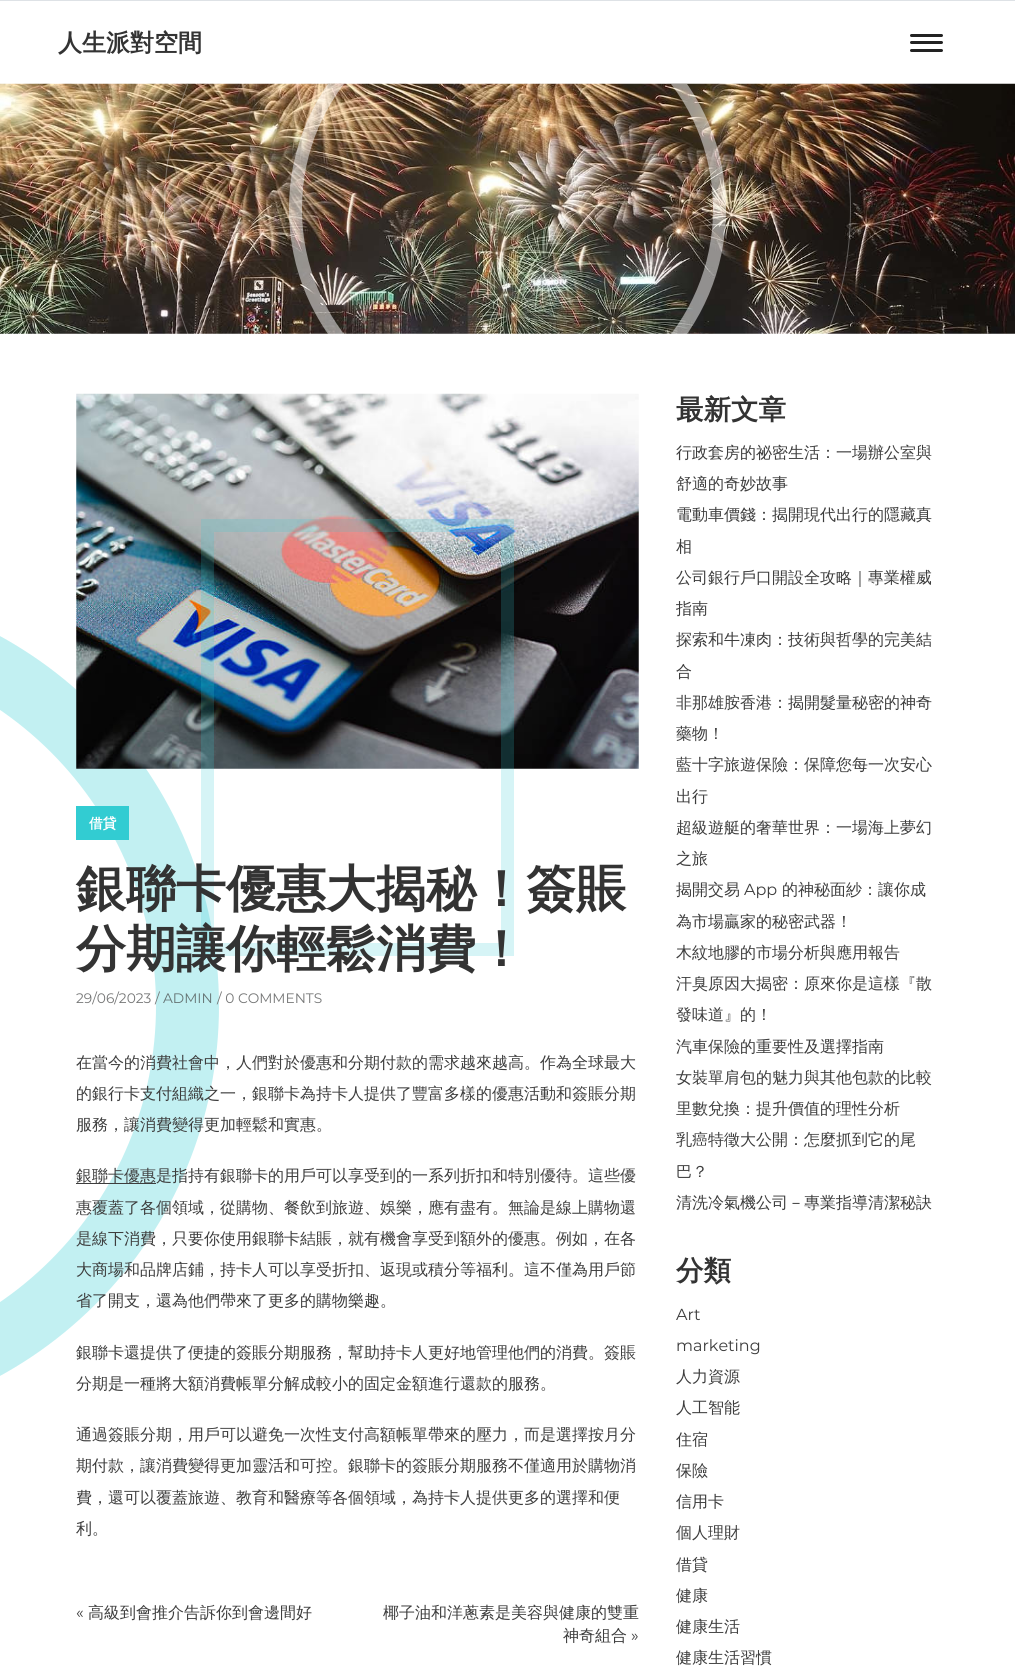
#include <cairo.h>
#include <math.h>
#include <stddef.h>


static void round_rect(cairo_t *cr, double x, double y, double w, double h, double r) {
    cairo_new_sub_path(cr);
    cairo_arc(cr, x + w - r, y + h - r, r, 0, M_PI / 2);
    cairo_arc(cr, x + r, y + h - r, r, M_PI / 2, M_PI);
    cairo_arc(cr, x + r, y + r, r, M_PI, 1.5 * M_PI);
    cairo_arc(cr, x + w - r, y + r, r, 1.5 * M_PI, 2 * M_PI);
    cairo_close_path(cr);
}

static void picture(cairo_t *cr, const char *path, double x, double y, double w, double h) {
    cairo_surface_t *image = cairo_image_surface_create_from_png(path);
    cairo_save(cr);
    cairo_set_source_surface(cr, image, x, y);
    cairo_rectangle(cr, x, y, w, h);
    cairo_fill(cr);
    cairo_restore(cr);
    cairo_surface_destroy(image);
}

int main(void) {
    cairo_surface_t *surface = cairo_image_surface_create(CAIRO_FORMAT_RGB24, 1015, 1676);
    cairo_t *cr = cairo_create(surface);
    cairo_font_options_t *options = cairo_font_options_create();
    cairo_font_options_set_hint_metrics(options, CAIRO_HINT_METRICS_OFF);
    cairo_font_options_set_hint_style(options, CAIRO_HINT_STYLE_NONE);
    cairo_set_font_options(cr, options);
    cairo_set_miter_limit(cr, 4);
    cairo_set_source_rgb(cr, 1, 1, 1);
    cairo_paint(cr);
    picture(cr, "img1.png", 0, 83, 1015, 251);
    cairo_set_source_rgb(cr, 0.871, 0.886, 0.902);
    cairo_rectangle(cr, 0, 0, 1015, 1);
    cairo_fill(cr);
    cairo_select_font_face(cr, "WenQuanYi Zen Hei", CAIRO_FONT_SLANT_NORMAL, CAIRO_FONT_WEIGHT_BOLD);
    cairo_set_font_size(cr, 24);
    cairo_set_source_rgb(cr, 0.2, 0.2, 0.2);
    cairo_move_to(cr, 58, 51);
    cairo_show_text(cr, "人生派對空間");
    cairo_save(cr);
    cairo_rectangle(cr, 0, 84, 1015, 250);
    cairo_clip(cr);
    round_rect(cr, 164.5, -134.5, 686, 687, 343);
    cairo_set_source_rgba(cr, 1, 1, 1, 0.3);
    cairo_set_line_width(cr, 1);
    cairo_stroke(cr);
    round_rect(cr, 295.5, -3.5, 424, 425, 212);
    cairo_set_source_rgba(cr, 1, 1, 1, 0.5);
    cairo_set_line_width(cr, 13);
    cairo_stroke(cr);
    cairo_restore(cr);
    cairo_set_source_rgb(cr, 0.133, 0.133, 0.133);
    round_rect(cr, 910, 34, 33, 3, 1.5);
    cairo_fill(cr);
    round_rect(cr, 910, 41, 33, 3, 1.5);
    cairo_fill(cr);
    round_rect(cr, 910, 49, 33, 3, 1.5);
    cairo_fill(cr);
    round_rect(cr, -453.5, 615.5, 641, 781, 390.5);
    cairo_set_source_rgb(cr, 0.761, 0.941, 0.949);
    cairo_set_line_width(cr, 63);
    cairo_stroke(cr);
    picture(cr, "img2.png", 76, 393, 563, 376);
    cairo_rectangle(cr, 207.5, 525.5, 300, 424);
    cairo_set_source_rgba(cr, 0.196, 0.8, 0.824, 0.2);
    cairo_set_line_width(cr, 13);
    cairo_stroke(cr);
    cairo_set_source_rgb(cr, 0.196, 0.8, 0.824);
    cairo_rectangle(cr, 76, 806, 53, 34);
    cairo_fill(cr);
    cairo_set_font_size(cr, 13.75);
    cairo_set_source_rgb(cr, 1, 1, 1);
    cairo_move_to(cr, 89, 828);
    cairo_show_text(cr, "借貸");
    cairo_set_font_size(cr, 50);
    cairo_set_source_rgb(cr, 0.2, 0.2, 0.2);
    cairo_move_to(cr, 76, 906);
    cairo_show_text(cr, "銀聯卡優惠大揭秘！簽賬");
    cairo_move_to(cr, 76, 966);
    cairo_show_text(cr, "分期讓你輕鬆消費！");
    cairo_select_font_face(cr, "Montserrat", CAIRO_FONT_SLANT_NORMAL, CAIRO_FONT_WEIGHT_NORMAL);
    cairo_set_font_size(cr, 13.75);
    cairo_set_source_rgb(cr, 0.463, 0.467, 0.467);
    cairo_move_to(cr, 76, 1003);
    cairo_show_text(cr, "29/06/2023 /");
    cairo_set_source_rgb(cr, 0.396, 0.451, 0.451);
    cairo_move_to(cr, 163, 1003);
    cairo_show_text(cr, "ADMIN");
    cairo_set_source_rgb(cr, 0.463, 0.467, 0.467);
    cairo_move_to(cr, 217, 1003);
    cairo_show_text(cr, "/ 0 COMMENTS");
    cairo_select_font_face(cr, "WenQuanYi Zen Hei Medium", CAIRO_FONT_SLANT_NORMAL, CAIRO_FONT_WEIGHT_NORMAL);
    cairo_set_font_size(cr, 16);
    cairo_set_source_rgb(cr, 0.239, 0.239, 0.239);
    cairo_move_to(cr, 76, 1068);
    cairo_show_text(cr, "在當今的消費社會中，人們對於優惠和分期付款的需求越來越高。作為全球最大");
    cairo_move_to(cr, 76, 1099);
    cairo_show_text(cr, "的銀行卡支付組織之一，銀聯卡為持卡人提供了豐富多樣的優惠活動和簽賬分期");
    cairo_move_to(cr, 76, 1130);
    cairo_show_text(cr, "服務，讓消費變得更加輕鬆和實惠。");
    cairo_rectangle(cr, 76, 1183, 80, 1);
    cairo_fill(cr);
    cairo_move_to(cr, 76, 1181);
    cairo_show_text(cr, "銀聯卡優惠是指持有銀聯卡的用戶可以享受到的一系列折扣和特別優待。這些優");
    cairo_move_to(cr, 76, 1213);
    cairo_show_text(cr, "惠覆蓋了各個領域，從購物、餐飲到旅遊、娛樂，應有盡有。無論是線上購物還");
    cairo_move_to(cr, 76, 1244);
    cairo_show_text(cr, "是線下消費，只要你使用銀聯卡結賬，就有機會享受到額外的優惠。例如，在各");
    cairo_move_to(cr, 76, 1275);
    cairo_show_text(cr, "大商場和品牌店鋪，持卡人可以享受折扣、返現或積分等福利。這不僅為用戶節");
    cairo_move_to(cr, 76, 1306);
    cairo_show_text(cr, "省了開支，還為他們帶來了更多的購物樂趣。");
    cairo_move_to(cr, 76, 1358);
    cairo_show_text(cr, "銀聯卡還提供了便捷的簽賬分期服務，幫助持卡人更好地管理他們的消費。簽賬");
    cairo_move_to(cr, 76, 1389);
    cairo_show_text(cr, "分期是一種將大額消費帳單分解成較小的固定金額進行還款的服務。");
    cairo_move_to(cr, 76, 1440);
    cairo_show_text(cr, "通過簽賬分期，用戶可以避免一次性支付高額帳單帶來的壓力，而是選擇按月分");
    cairo_move_to(cr, 76, 1471);
    cairo_show_text(cr, "期付款，讓消費變得更加靈活和可控。銀聯卡的簽賬分期服務不僅適用於購物消");
    cairo_move_to(cr, 76, 1503);
    cairo_show_text(cr, "費，還可以覆蓋旅遊、教育和醫療等各個領域，為持卡人提供更多的選擇和便");
    cairo_move_to(cr, 76, 1534);
    cairo_show_text(cr, "利。");
    cairo_select_font_face(cr, "Montserrat", CAIRO_FONT_SLANT_NORMAL, CAIRO_FONT_WEIGHT_NORMAL);
    cairo_move_to(cr, 76, 1618);
    cairo_show_text(cr, "«");
    cairo_select_font_face(cr, "WenQuanYi Zen Hei Medium", CAIRO_FONT_SLANT_NORMAL, CAIRO_FONT_WEIGHT_NORMAL);
    cairo_move_to(cr, 88, 1618);
    cairo_show_text(cr, "高級到會推介告訴你到會邊間好");
    cairo_move_to(cr, 383, 1618);
    cairo_show_text(cr, "椰子油和洋蔥素是美容與健康的雙重");
    cairo_move_to(cr, 563, 1641);
    cairo_show_text(cr, "神奇組合");
    cairo_select_font_face(cr, "Montserrat", CAIRO_FONT_SLANT_NORMAL, CAIRO_FONT_WEIGHT_NORMAL);
    cairo_move_to(cr, 631, 1641);
    cairo_show_text(cr, "»");
    cairo_select_font_face(cr, "WenQuanYi Zen Hei", CAIRO_FONT_SLANT_NORMAL, CAIRO_FONT_WEIGHT_BOLD);
    cairo_set_font_size(cr, 27.5);
    cairo_set_source_rgb(cr, 0.2, 0.2, 0.2);
    cairo_move_to(cr, 676, 419);
    cairo_show_text(cr, "最新文章");
    cairo_select_font_face(cr, "WenQuanYi Zen Hei Medium", CAIRO_FONT_SLANT_NORMAL, CAIRO_FONT_WEIGHT_NORMAL);
    cairo_set_font_size(cr, 16);
    cairo_set_source_rgb(cr, 0.239, 0.239, 0.239);
    cairo_move_to(cr, 676, 458);
    cairo_show_text(cr, "行政套房的祕密生活：一場辦公室與");
    cairo_move_to(cr, 676, 489);
    cairo_show_text(cr, "舒適的奇妙故事");
    cairo_move_to(cr, 676, 520);
    cairo_show_text(cr, "電動車價錢：揭開現代出行的隱藏真");
    cairo_move_to(cr, 676, 552);
    cairo_show_text(cr, "相");
    cairo_move_to(cr, 676, 583);
    cairo_show_text(cr, "公司銀行戶口開設全攻略｜專業權威");
    cairo_move_to(cr, 676, 614);
    cairo_show_text(cr, "指南");
    cairo_move_to(cr, 676, 645);
    cairo_show_text(cr, "探索和牛凍肉：技術與哲學的完美結");
    cairo_move_to(cr, 676, 677);
    cairo_show_text(cr, "合");
    cairo_move_to(cr, 676, 708);
    cairo_show_text(cr, "非那雄胺香港：揭開髮量秘密的神奇");
    cairo_move_to(cr, 676, 739);
    cairo_show_text(cr, "藥物！");
    cairo_move_to(cr, 676, 770);
    cairo_show_text(cr, "藍十字旅遊保險：保障您每一次安心");
    cairo_move_to(cr, 676, 802);
    cairo_show_text(cr, "出行");
    cairo_move_to(cr, 676, 833);
    cairo_show_text(cr, "超級遊艇的奢華世界：一場海上夢幻");
    cairo_move_to(cr, 676, 864);
    cairo_show_text(cr, "之旅");
    cairo_move_to(cr, 676, 895);
    cairo_show_text(cr, "揭開交易");
    cairo_select_font_face(cr, "Montserrat", CAIRO_FONT_SLANT_NORMAL, CAIRO_FONT_WEIGHT_NORMAL);
    cairo_move_to(cr, 744, 895);
    cairo_show_text(cr, "App");
    cairo_select_font_face(cr, "WenQuanYi Zen Hei Medium", CAIRO_FONT_SLANT_NORMAL, CAIRO_FONT_WEIGHT_NORMAL);
    cairo_move_to(cr, 782, 895);
    cairo_show_text(cr, "的神秘面紗：讓你成");
    cairo_move_to(cr, 676, 927);
    cairo_show_text(cr, "為市場贏家的秘密武器！");
    cairo_move_to(cr, 676, 958);
    cairo_show_text(cr, "木紋地膠的市場分析與應用報告");
    cairo_move_to(cr, 676, 989);
    cairo_show_text(cr, "汗臭原因大揭密：原來你是這樣『散");
    cairo_move_to(cr, 676, 1020);
    cairo_show_text(cr, "發味道』的！");
    cairo_move_to(cr, 676, 1052);
    cairo_show_text(cr, "汽車保險的重要性及選擇指南");
    cairo_move_to(cr, 676, 1083);
    cairo_show_text(cr, "女裝單肩包的魅力與其他包款的比較");
    cairo_move_to(cr, 676, 1114);
    cairo_show_text(cr, "里數兌換：提升價值的理性分析");
    cairo_move_to(cr, 676, 1145);
    cairo_show_text(cr, "乳癌特徵大公開：怎麼抓到它的尾");
    cairo_move_to(cr, 676, 1177);
    cairo_show_text(cr, "巴？");
    cairo_move_to(cr, 676, 1208);
    cairo_show_text(cr, "清洗冷氣機公司－專業指導清潔秘訣");
    cairo_select_font_face(cr, "WenQuanYi Zen Hei", CAIRO_FONT_SLANT_NORMAL, CAIRO_FONT_WEIGHT_BOLD);
    cairo_set_font_size(cr, 27.5);
    cairo_set_source_rgb(cr, 0.2, 0.2, 0.2);
    cairo_move_to(cr, 676, 1280);
    cairo_show_text(cr, "分類");
    cairo_select_font_face(cr, "Montserrat", CAIRO_FONT_SLANT_NORMAL, CAIRO_FONT_WEIGHT_NORMAL);
    cairo_set_font_size(cr, 16);
    cairo_set_source_rgb(cr, 0.239, 0.239, 0.239);
    cairo_move_to(cr, 676, 1320);
    cairo_show_text(cr, "Art");
    cairo_move_to(cr, 676, 1351);
    cairo_show_text(cr, "marketing");
    cairo_select_font_face(cr, "WenQuanYi Zen Hei Medium", CAIRO_FONT_SLANT_NORMAL, CAIRO_FONT_WEIGHT_NORMAL);
    cairo_move_to(cr, 676, 1382);
    cairo_show_text(cr, "人力資源");
    cairo_move_to(cr, 676, 1413);
    cairo_show_text(cr, "人工智能");
    cairo_move_to(cr, 676, 1445);
    cairo_show_text(cr, "住宿");
    cairo_move_to(cr, 676, 1476);
    cairo_show_text(cr, "保險");
    cairo_move_to(cr, 676, 1507);
    cairo_show_text(cr, "信用卡");
    cairo_move_to(cr, 676, 1538);
    cairo_show_text(cr, "個人理財");
    cairo_move_to(cr, 676, 1570);
    cairo_show_text(cr, "借貸");
    cairo_move_to(cr, 676, 1601);
    cairo_show_text(cr, "健康");
    cairo_move_to(cr, 676, 1632);
    cairo_show_text(cr, "健康生活");
    cairo_move_to(cr, 676, 1663);
    cairo_show_text(cr, "健康生活習慣");
    cairo_surface_write_to_png(surface, "page.png");
    cairo_font_options_destroy(options);
    cairo_destroy(cr);
    cairo_surface_destroy(surface);
    return 0;
}
